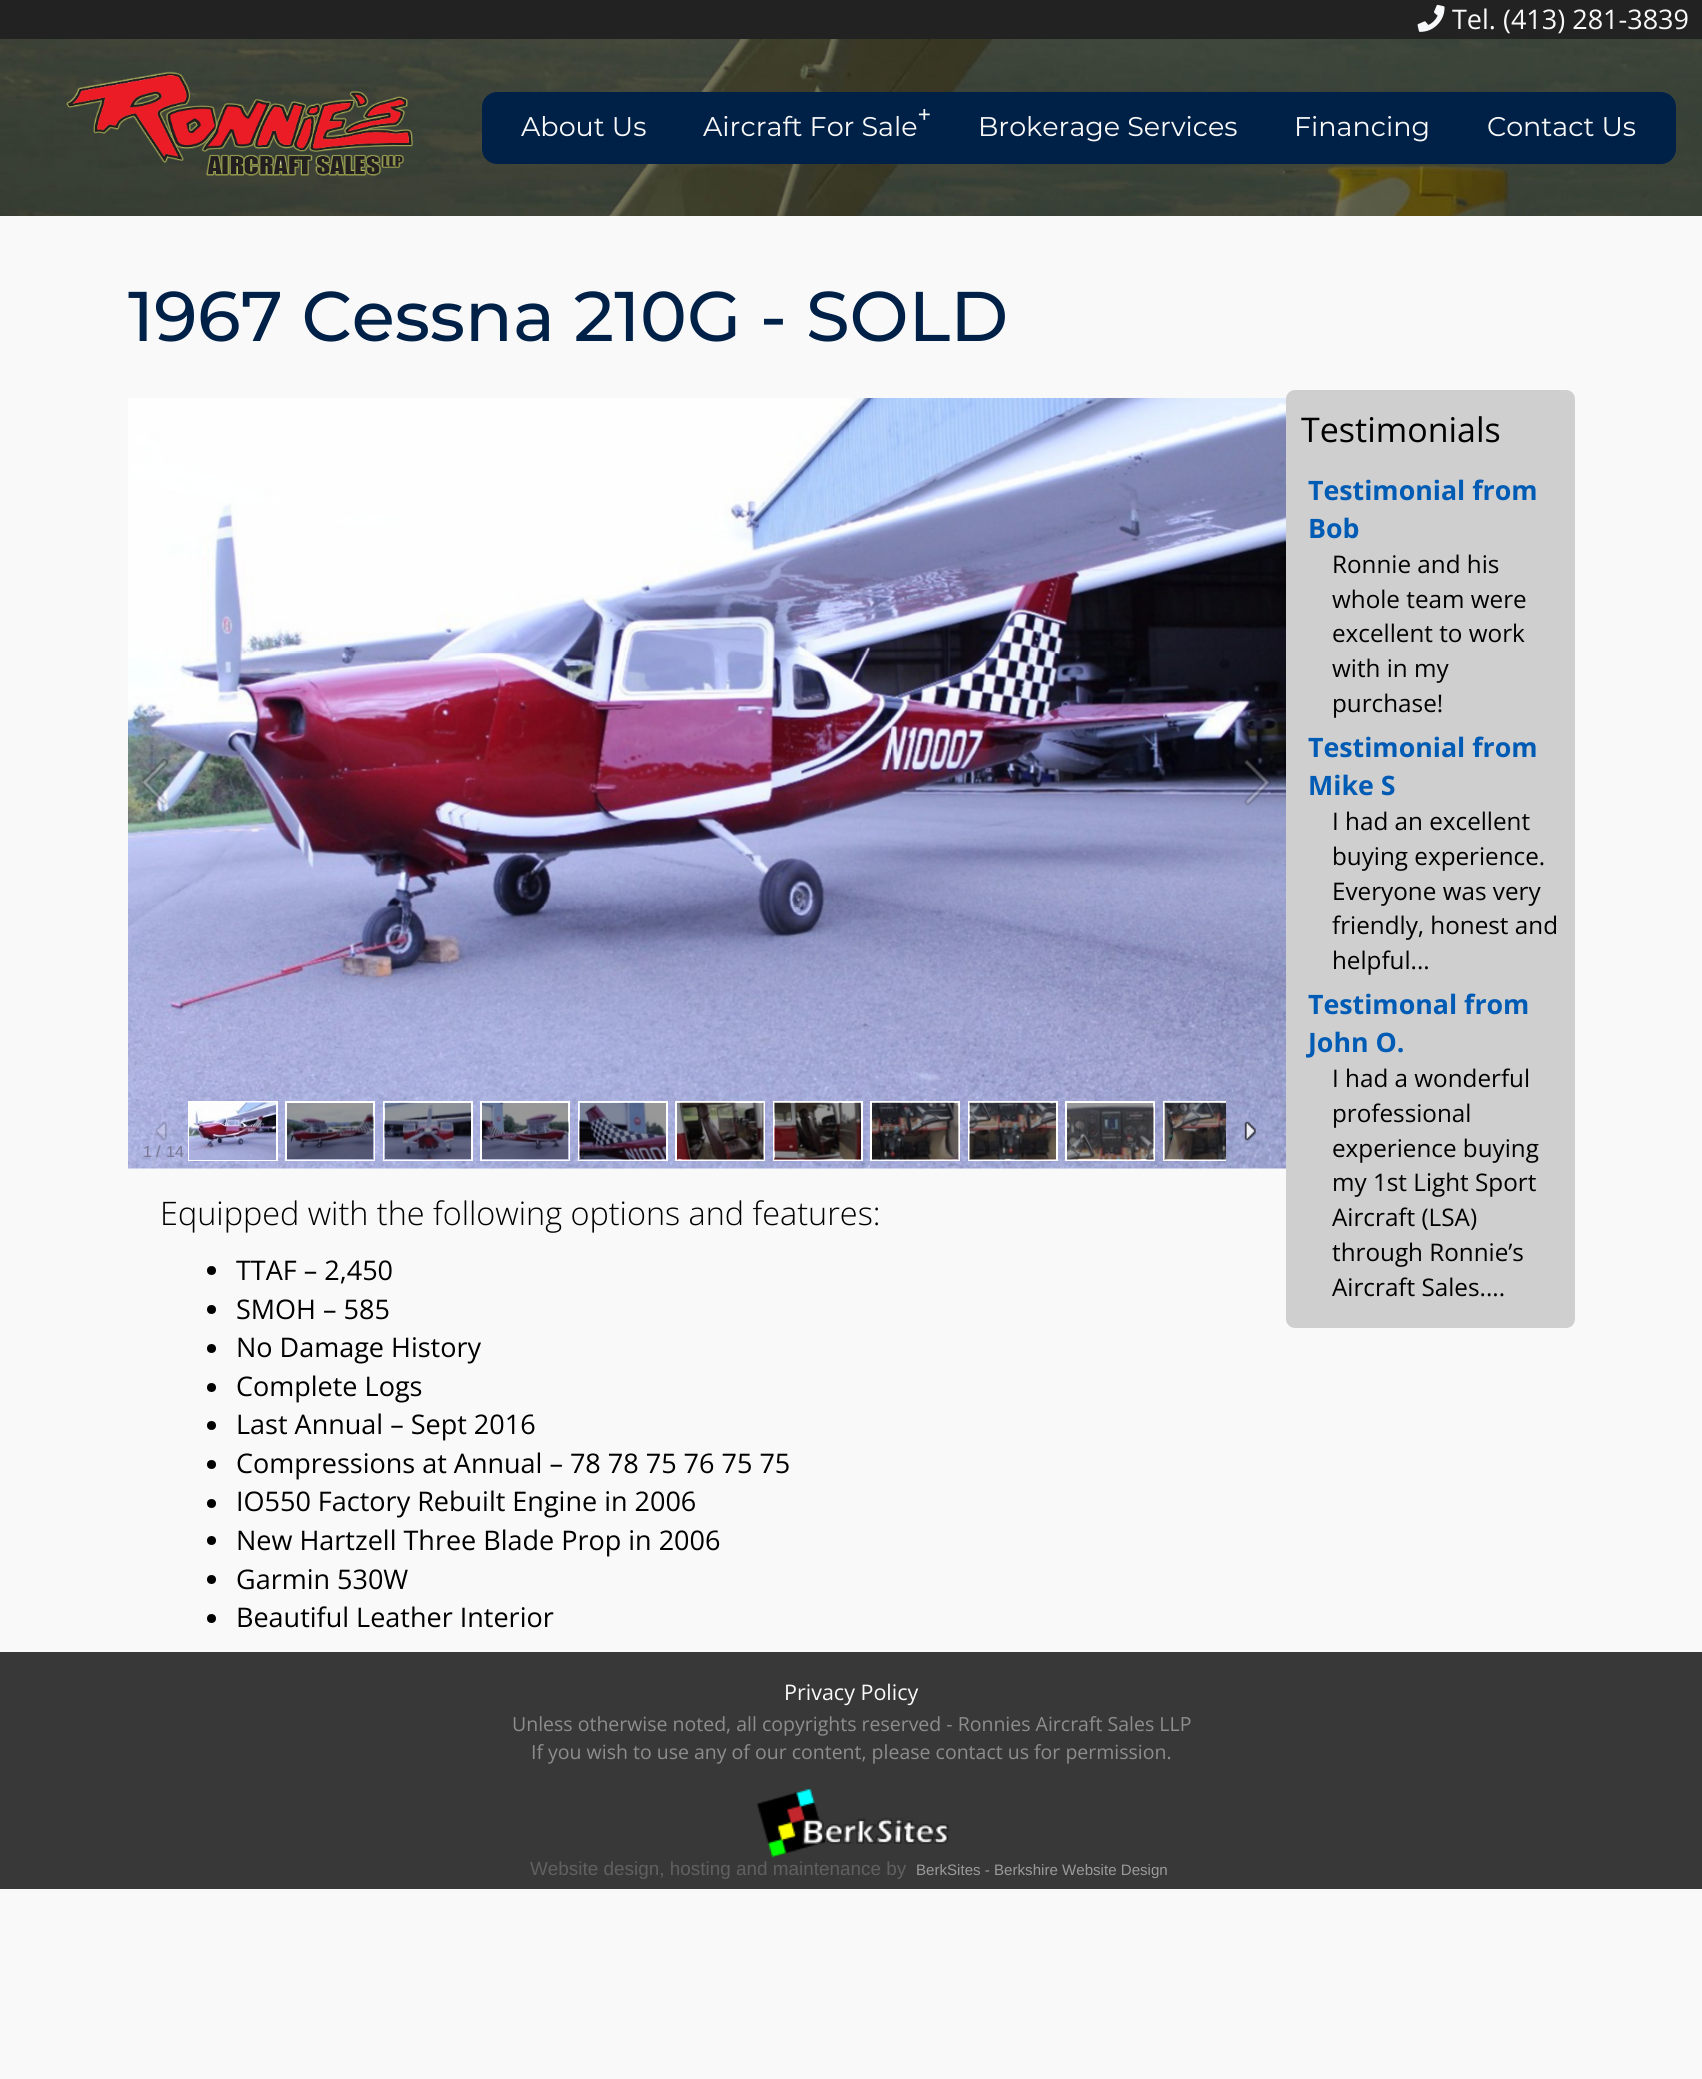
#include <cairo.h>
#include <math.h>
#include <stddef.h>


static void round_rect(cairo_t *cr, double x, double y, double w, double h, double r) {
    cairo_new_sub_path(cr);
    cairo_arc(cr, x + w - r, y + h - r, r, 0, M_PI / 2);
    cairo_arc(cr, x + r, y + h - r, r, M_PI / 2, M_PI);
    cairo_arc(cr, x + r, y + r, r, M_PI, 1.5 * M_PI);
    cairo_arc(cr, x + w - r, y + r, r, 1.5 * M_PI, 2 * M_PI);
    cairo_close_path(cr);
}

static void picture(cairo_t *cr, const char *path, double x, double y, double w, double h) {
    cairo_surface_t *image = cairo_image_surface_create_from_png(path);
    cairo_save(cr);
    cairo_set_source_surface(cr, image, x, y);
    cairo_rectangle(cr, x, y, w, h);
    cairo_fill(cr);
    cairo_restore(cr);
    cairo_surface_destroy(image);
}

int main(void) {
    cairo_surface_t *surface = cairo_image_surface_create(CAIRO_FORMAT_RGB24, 1702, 2079);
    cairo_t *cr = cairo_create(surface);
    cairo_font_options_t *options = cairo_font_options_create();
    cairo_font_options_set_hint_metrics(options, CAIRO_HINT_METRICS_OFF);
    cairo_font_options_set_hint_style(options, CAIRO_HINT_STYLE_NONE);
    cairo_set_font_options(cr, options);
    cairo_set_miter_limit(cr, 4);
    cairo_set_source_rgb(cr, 0.973, 0.976, 0.98);
    cairo_paint(cr);
    cairo_set_source_rgb(cr, 0.133, 0.133, 0.133);
    cairo_rectangle(cr, 0, 0, 1702, 39);
    cairo_fill(cr);
    picture(cr, "img1.png", 1417, 4, 28, 28);
    cairo_select_font_face(cr, "Open Sans", CAIRO_FONT_SLANT_NORMAL, CAIRO_FONT_WEIGHT_NORMAL);
    cairo_set_font_size(cr, 27);
    cairo_set_source_rgb(cr, 0.973, 0.976, 0.98);
    cairo_move_to(cr, 1452, 29);
    cairo_show_text(cr, "Tel. (413) 281-3839");
    picture(cr, "img2.png", 0, 39, 1702, 177);
    picture(cr, "img3.png", 66, 71, 347, 105);
    cairo_set_source_rgb(cr, 0, 0.129, 0.278);
    round_rect(cr, 482, 92, 1194, 72, 15);
    cairo_fill(cr);
    cairo_select_font_face(cr, "Montserrat", CAIRO_FONT_SLANT_NORMAL, CAIRO_FONT_WEIGHT_NORMAL);
    cairo_set_source_rgb(cr, 0.973, 0.976, 0.98);
    cairo_move_to(cr, 521, 136);
    cairo_show_text(cr, "About Us");
    cairo_move_to(cr, 703, 136);
    cairo_show_text(cr, "Aircraft For Sale");
    cairo_select_font_face(cr, "DejaVu Sans Mono", CAIRO_FONT_SLANT_NORMAL, CAIRO_FONT_WEIGHT_NORMAL);
    cairo_set_font_size(cr, 21);
    cairo_move_to(cr, 918, 121);
    cairo_show_text(cr, "+");
    cairo_select_font_face(cr, "Montserrat", CAIRO_FONT_SLANT_NORMAL, CAIRO_FONT_WEIGHT_NORMAL);
    cairo_set_font_size(cr, 27);
    cairo_move_to(cr, 978, 136);
    cairo_show_text(cr, "Brokerage Services");
    cairo_move_to(cr, 1294, 136);
    cairo_show_text(cr, "Financing");
    cairo_move_to(cr, 1487, 136);
    cairo_show_text(cr, "Contact Us");
    cairo_select_font_face(cr, "Montserrat Medium", CAIRO_FONT_SLANT_NORMAL, CAIRO_FONT_WEIGHT_NORMAL);
    cairo_set_font_size(cr, 70.25);
    cairo_set_source_rgb(cr, 0, 0.129, 0.278);
    cairo_move_to(cr, 128, 341);
    cairo_show_text(cr, "1967 Cessna 210G - SOLD");
    picture(cr, "img17.png", 128, 398, 1158, 771);
    picture(cr, "img4.png", 155, 1121, 12, 20);
    cairo_rectangle(cr, 189, 1102, 88, 58);
    cairo_set_source_rgb(cr, 1, 1, 1);
    cairo_stroke(cr);
    picture(cr, "img5.png", 189, 1102, 87, 58);
    cairo_set_source_rgb(cr, 0, 0, 0);
    cairo_rectangle(cr, 286, 1102, 88, 58);
    cairo_fill_preserve(cr);
    cairo_set_source_rgb(cr, 1, 1, 1);
    cairo_stroke(cr);
    picture(cr, "img6.png", 287, 1103, 87, 57);
    cairo_set_source_rgb(cr, 0, 0, 0);
    cairo_rectangle(cr, 384, 1102, 88, 58);
    cairo_fill_preserve(cr);
    cairo_set_source_rgb(cr, 1, 1, 1);
    cairo_stroke(cr);
    picture(cr, "img7.png", 384, 1102, 87, 58);
    cairo_set_source_rgb(cr, 0, 0, 0);
    cairo_rectangle(cr, 481, 1102, 88, 58);
    cairo_fill_preserve(cr);
    cairo_set_source_rgb(cr, 1, 1, 1);
    cairo_stroke(cr);
    picture(cr, "img8.png", 482, 1102, 87, 58);
    cairo_set_source_rgb(cr, 0, 0, 0);
    cairo_rectangle(cr, 579, 1102, 88, 58);
    cairo_fill_preserve(cr);
    cairo_set_source_rgb(cr, 1, 1, 1);
    cairo_stroke(cr);
    picture(cr, "img9.png", 579, 1102, 87, 58);
    cairo_set_source_rgb(cr, 0, 0, 0);
    cairo_rectangle(cr, 676, 1102, 88, 58);
    cairo_fill_preserve(cr);
    cairo_set_source_rgb(cr, 1, 1, 1);
    cairo_stroke(cr);
    picture(cr, "img10.png", 677, 1102, 87, 58);
    cairo_set_source_rgb(cr, 0, 0, 0);
    cairo_rectangle(cr, 774, 1102, 88, 58);
    cairo_fill_preserve(cr);
    cairo_set_source_rgb(cr, 1, 1, 1);
    cairo_stroke(cr);
    picture(cr, "img11.png", 774, 1102, 87, 58);
    cairo_set_source_rgb(cr, 0, 0, 0);
    cairo_rectangle(cr, 871, 1102, 88, 58);
    cairo_fill_preserve(cr);
    cairo_set_source_rgb(cr, 1, 1, 1);
    cairo_stroke(cr);
    picture(cr, "img12.png", 872, 1102, 87, 58);
    cairo_set_source_rgb(cr, 0, 0, 0);
    cairo_rectangle(cr, 969, 1102, 88, 58);
    cairo_fill_preserve(cr);
    cairo_set_source_rgb(cr, 1, 1, 1);
    cairo_stroke(cr);
    picture(cr, "img13.png", 969, 1102, 87, 58);
    cairo_set_source_rgb(cr, 0, 0, 0);
    cairo_rectangle(cr, 1066, 1102, 88, 58);
    cairo_fill_preserve(cr);
    cairo_set_source_rgb(cr, 1, 1, 1);
    cairo_stroke(cr);
    picture(cr, "img14.png", 1067, 1103, 87, 57);
    cairo_set_source_rgb(cr, 0, 0, 0);
    cairo_rectangle(cr, 1165, 1103, 61, 56);
    cairo_fill(cr);
    cairo_save(cr);
    cairo_rectangle(cr, 188, 1101, 1038, 60);
    cairo_clip(cr);
    cairo_rectangle(cr, 1164, 1102, 88, 58);
    cairo_set_source_rgb(cr, 1, 1, 1);
    cairo_stroke(cr);
    cairo_restore(cr);
    picture(cr, "img15.png", 1164, 1102, 62, 58);
    picture(cr, "img16.png", 1244, 1121, 12, 20);
    picture(cr, "img18.png", 142, 759, 27, 47);
    picture(cr, "img19.png", 1243, 760, 28, 46);
    cairo_select_font_face(cr, "Liberation Sans", CAIRO_FONT_SLANT_NORMAL, CAIRO_FONT_WEIGHT_NORMAL);
    cairo_set_font_size(cr, 16);
    cairo_set_source_rgb(cr, 0.475, 0.467, 0.573);
    cairo_move_to(cr, 143, 1157);
    cairo_show_text(cr, "1");
    cairo_move_to(cr, 156, 1157);
    cairo_show_text(cr, "/");
    cairo_move_to(cr, 166, 1157);
    cairo_show_text(cr, "14");
    cairo_select_font_face(cr, "Open Sans Light", CAIRO_FONT_SLANT_NORMAL, CAIRO_FONT_WEIGHT_NORMAL);
    cairo_set_font_size(cr, 32.4);
    cairo_set_source_rgb(cr, 0, 0, 0);
    cairo_move_to(cr, 160, 1225);
    cairo_show_text(cr, "Equipped with the following options and features:");
    cairo_new_path(cr);
    cairo_arc(cr, 211.5, 1270.5, 4.5, 0, 2 * M_PI);
    cairo_fill(cr);
    cairo_select_font_face(cr, "Open Sans", CAIRO_FONT_SLANT_NORMAL, CAIRO_FONT_WEIGHT_NORMAL);
    cairo_set_font_size(cr, 27);
    cairo_move_to(cr, 236, 1280);
    cairo_show_text(cr, "TTAF – 2,450");
    cairo_new_path(cr);
    cairo_arc(cr, 211.5, 1309.5, 4.5, 0, 2 * M_PI);
    cairo_fill(cr);
    cairo_move_to(cr, 236, 1319);
    cairo_show_text(cr, "SMOH – 585");
    cairo_new_path(cr);
    cairo_arc(cr, 211.5, 1348.5, 4.5, 0, 2 * M_PI);
    cairo_fill(cr);
    cairo_move_to(cr, 236, 1357);
    cairo_show_text(cr, "No Damage History");
    cairo_new_path(cr);
    cairo_arc(cr, 211.5, 1387.5, 4.5, 0, 2 * M_PI);
    cairo_fill(cr);
    cairo_move_to(cr, 236, 1396);
    cairo_show_text(cr, "Complete Logs");
    cairo_new_path(cr);
    cairo_arc(cr, 211.5, 1425.5, 4.5, 0, 2 * M_PI);
    cairo_fill(cr);
    cairo_move_to(cr, 236, 1434);
    cairo_show_text(cr, "Last Annual – Sept 2016");
    cairo_new_path(cr);
    cairo_arc(cr, 211.5, 1464.5, 4.5, 0, 2 * M_PI);
    cairo_fill(cr);
    cairo_move_to(cr, 236, 1473);
    cairo_show_text(cr, "Compressions at Annual – 78 78 75 76 75 75");
    cairo_new_path(cr);
    cairo_arc(cr, 211.5, 1503.5, 4.5, 0, 2 * M_PI);
    cairo_fill(cr);
    cairo_move_to(cr, 236, 1511);
    cairo_show_text(cr, "IO550 Factory Rebuilt Engine in 2006");
    cairo_new_path(cr);
    cairo_arc(cr, 211.5, 1540.5, 4.5, 0, 2 * M_PI);
    cairo_fill(cr);
    cairo_move_to(cr, 236, 1550);
    cairo_show_text(cr, "New Hartzell Three Blade Prop in 2006");
    cairo_new_path(cr);
    cairo_arc(cr, 211.5, 1579.5, 4.5, 0, 2 * M_PI);
    cairo_fill(cr);
    cairo_move_to(cr, 236, 1589);
    cairo_show_text(cr, "Garmin 530W");
    cairo_new_path(cr);
    cairo_arc(cr, 211.5, 1618.5, 4.5, 0, 2 * M_PI);
    cairo_fill(cr);
    cairo_move_to(cr, 236, 1627);
    cairo_show_text(cr, "Beautiful Leather Interior");
    cairo_set_source_rgb(cr, 0.812, 0.812, 0.812);
    round_rect(cr, 1286, 390, 289, 938, 9);
    cairo_fill(cr);
    cairo_set_font_size(cr, 34);
    cairo_set_source_rgb(cr, 0, 0, 0);
    cairo_move_to(cr, 1301, 442);
    cairo_show_text(cr, "Testimonials");
    cairo_select_font_face(cr, "Open Sans", CAIRO_FONT_SLANT_NORMAL, CAIRO_FONT_WEIGHT_BOLD);
    cairo_set_font_size(cr, 26.75);
    cairo_set_source_rgb(cr, 0, 0.357, 0.71);
    cairo_move_to(cr, 1308, 500);
    cairo_show_text(cr, "Testimonial from");
    cairo_move_to(cr, 1308, 538);
    cairo_show_text(cr, "Bob");
    cairo_select_font_face(cr, "Open Sans", CAIRO_FONT_SLANT_NORMAL, CAIRO_FONT_WEIGHT_NORMAL);
    cairo_set_font_size(cr, 24.25);
    cairo_set_source_rgb(cr, 0, 0, 0);
    cairo_move_to(cr, 1332, 573);
    cairo_show_text(cr, "Ronnie and his");
    cairo_move_to(cr, 1332, 608);
    cairo_show_text(cr, "whole team were");
    cairo_move_to(cr, 1332, 642);
    cairo_show_text(cr, "excellent to work");
    cairo_move_to(cr, 1332, 677);
    cairo_show_text(cr, "with in my");
    cairo_move_to(cr, 1332, 712);
    cairo_show_text(cr, "purchase!");
    cairo_select_font_face(cr, "Open Sans", CAIRO_FONT_SLANT_NORMAL, CAIRO_FONT_WEIGHT_BOLD);
    cairo_set_font_size(cr, 26.75);
    cairo_set_source_rgb(cr, 0, 0.357, 0.71);
    cairo_move_to(cr, 1308, 757);
    cairo_show_text(cr, "Testimonial from");
    cairo_move_to(cr, 1308, 795);
    cairo_show_text(cr, "Mike S");
    cairo_select_font_face(cr, "Open Sans", CAIRO_FONT_SLANT_NORMAL, CAIRO_FONT_WEIGHT_NORMAL);
    cairo_set_font_size(cr, 24.25);
    cairo_set_source_rgb(cr, 0, 0, 0);
    cairo_move_to(cr, 1332, 830);
    cairo_show_text(cr, "I had an excellent");
    cairo_move_to(cr, 1332, 865);
    cairo_show_text(cr, "buying experience.");
    cairo_move_to(cr, 1332, 900);
    cairo_show_text(cr, "Everyone was very");
    cairo_move_to(cr, 1332, 934);
    cairo_show_text(cr, "friendly, honest and");
    cairo_move_to(cr, 1332, 969);
    cairo_show_text(cr, "helpful...");
    cairo_select_font_face(cr, "Open Sans", CAIRO_FONT_SLANT_NORMAL, CAIRO_FONT_WEIGHT_BOLD);
    cairo_set_font_size(cr, 26.75);
    cairo_set_source_rgb(cr, 0, 0.357, 0.71);
    cairo_move_to(cr, 1308, 1014);
    cairo_show_text(cr, "Testimonal from");
    cairo_move_to(cr, 1308, 1052);
    cairo_show_text(cr, "John O.");
    cairo_select_font_face(cr, "Open Sans", CAIRO_FONT_SLANT_NORMAL, CAIRO_FONT_WEIGHT_NORMAL);
    cairo_set_font_size(cr, 24.25);
    cairo_set_source_rgb(cr, 0, 0, 0);
    cairo_move_to(cr, 1332, 1087);
    cairo_show_text(cr, "I had a wonderful");
    cairo_move_to(cr, 1332, 1122);
    cairo_show_text(cr, "professional");
    cairo_move_to(cr, 1332, 1157);
    cairo_show_text(cr, "experience buying");
    cairo_move_to(cr, 1332, 1191);
    cairo_show_text(cr, "my 1st Light Sport");
    cairo_move_to(cr, 1332, 1226);
    cairo_show_text(cr, "Aircraft (LSA)");
    cairo_move_to(cr, 1332, 1261);
    cairo_show_text(cr, "through Ronnie’s");
    cairo_move_to(cr, 1332, 1296);
    cairo_show_text(cr, "Aircraft Sales....");
    cairo_set_source_rgb(cr, 0.22, 0.22, 0.22);
    cairo_rectangle(cr, 0, 1652, 1702, 237);
    cairo_fill(cr);
    cairo_set_font_size(cr, 21.5);
    cairo_set_source_rgb(cr, 0.973, 0.976, 0.98);
    cairo_move_to(cr, 784, 1700);
    cairo_show_text(cr, "Privacy Policy");
    cairo_set_font_size(cr, 19.5);
    cairo_set_source_rgb(cr, 0.553, 0.553, 0.553);
    cairo_move_to(cr, 512, 1731);
    cairo_show_text(cr, "Unless otherwise noted, all copyrights reserved - Ronnies Aircraft Sales LLP");
    cairo_move_to(cr, 531, 1759);
    cairo_show_text(cr, "If you wish to use any of our content, please contact us for permission.");
    picture(cr, "img20.png", 757, 1788, 193, 70);
    cairo_select_font_face(cr, "Liberation Sans", CAIRO_FONT_SLANT_NORMAL, CAIRO_FONT_WEIGHT_NORMAL);
    cairo_set_font_size(cr, 18.9);
    cairo_set_source_rgb(cr, 0.376, 0.376, 0.376);
    cairo_move_to(cr, 530, 1875);
    cairo_show_text(cr, "Website design, hosting and maintenance by");
    cairo_set_font_size(cr, 15.1);
    cairo_set_source_rgb(cr, 0.604, 0.604, 0.604);
    cairo_move_to(cr, 916, 1875);
    cairo_show_text(cr, "BerkSites - Berkshire Website Design");
    cairo_surface_write_to_png(surface, "page.png");
    cairo_font_options_destroy(options);
    cairo_destroy(cr);
    cairo_surface_destroy(surface);
    return 0;
}
